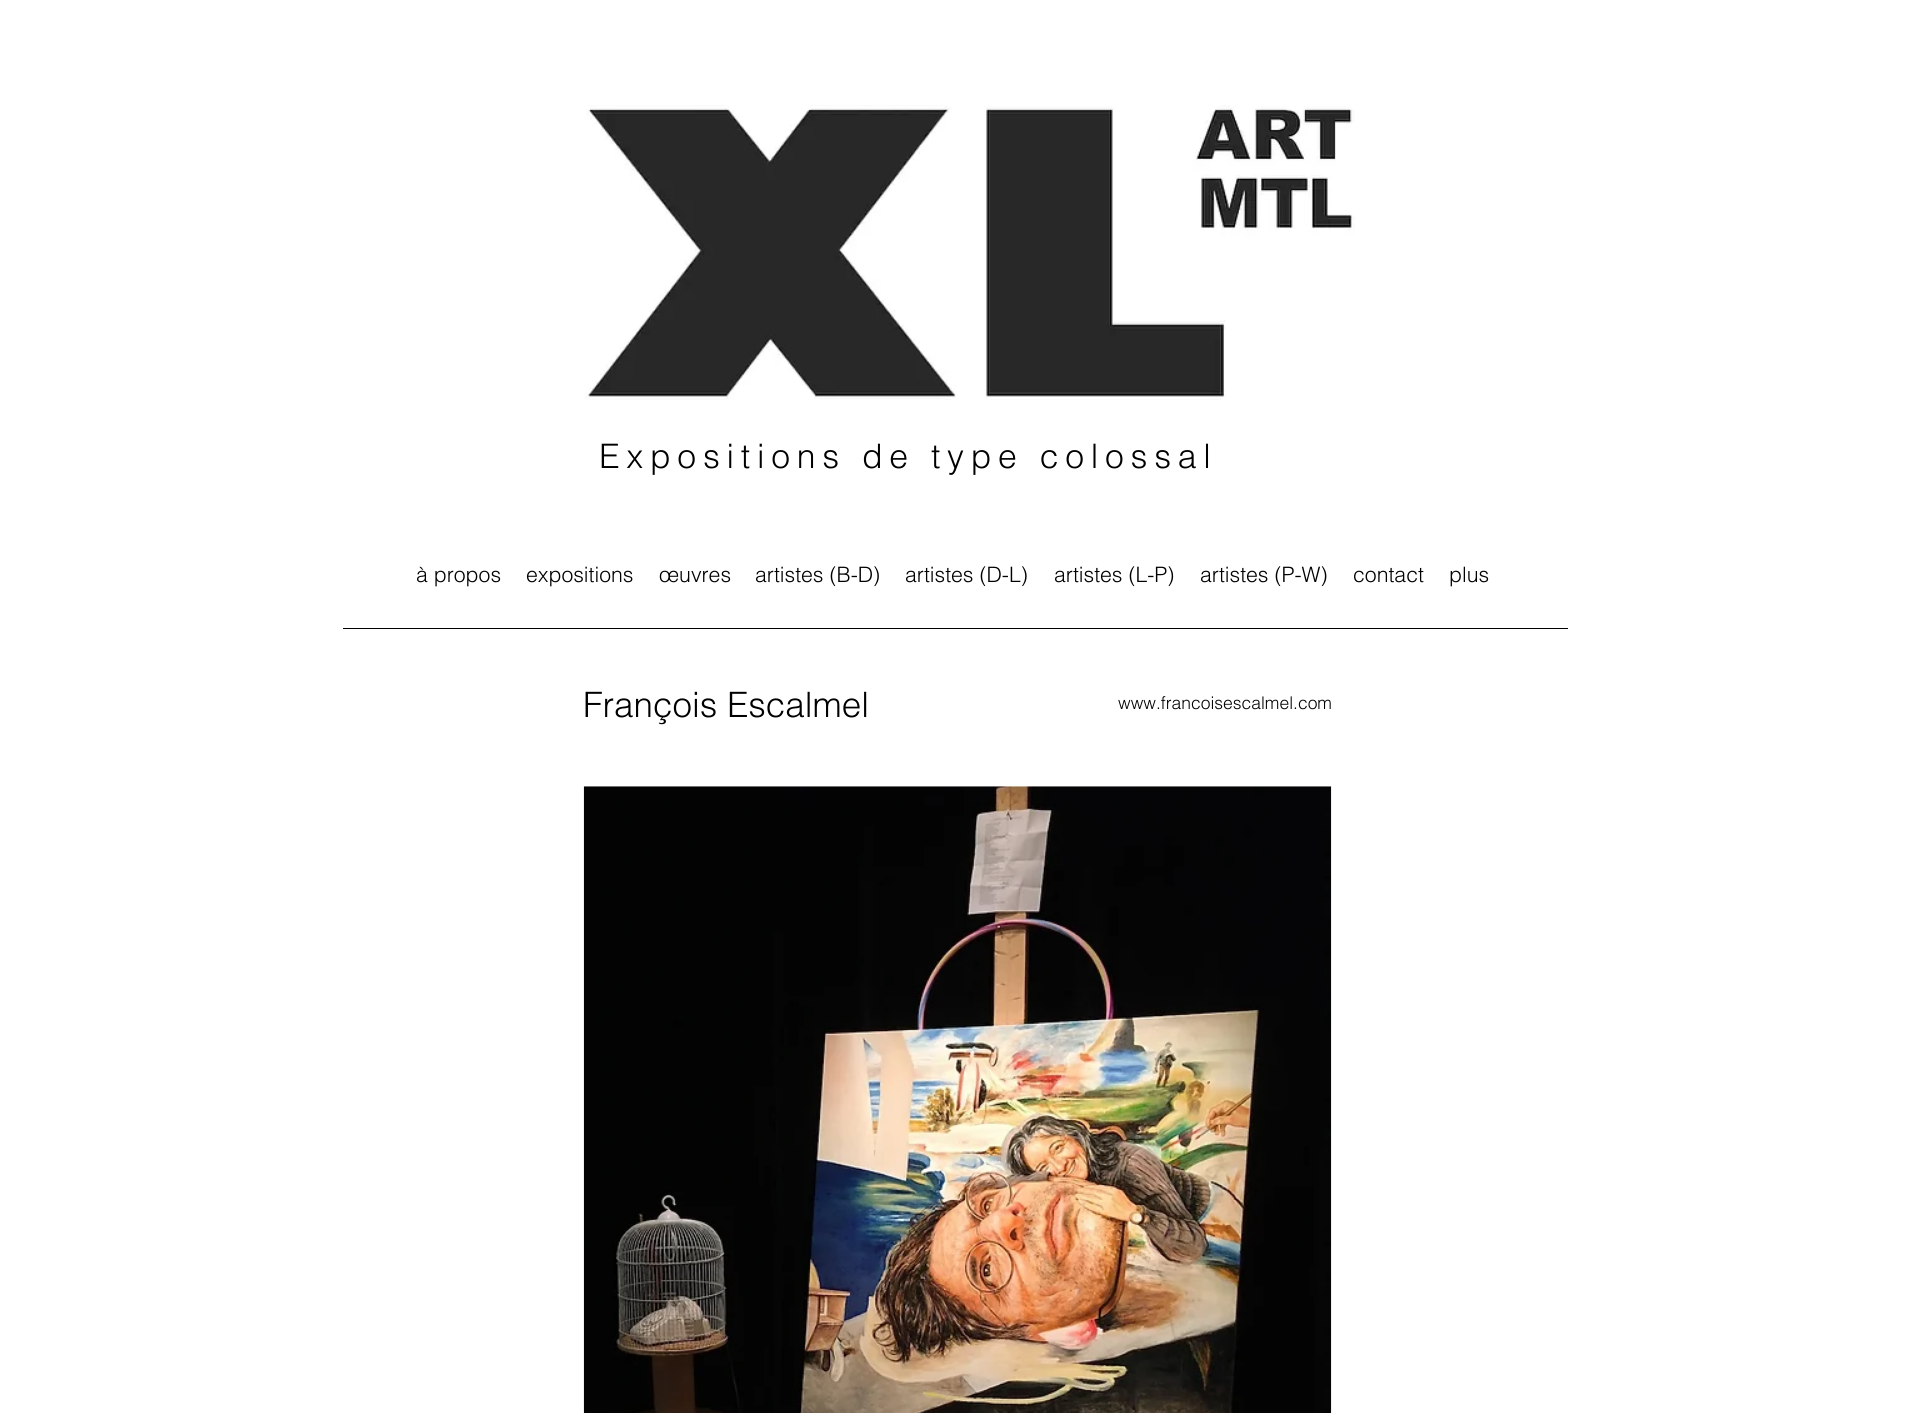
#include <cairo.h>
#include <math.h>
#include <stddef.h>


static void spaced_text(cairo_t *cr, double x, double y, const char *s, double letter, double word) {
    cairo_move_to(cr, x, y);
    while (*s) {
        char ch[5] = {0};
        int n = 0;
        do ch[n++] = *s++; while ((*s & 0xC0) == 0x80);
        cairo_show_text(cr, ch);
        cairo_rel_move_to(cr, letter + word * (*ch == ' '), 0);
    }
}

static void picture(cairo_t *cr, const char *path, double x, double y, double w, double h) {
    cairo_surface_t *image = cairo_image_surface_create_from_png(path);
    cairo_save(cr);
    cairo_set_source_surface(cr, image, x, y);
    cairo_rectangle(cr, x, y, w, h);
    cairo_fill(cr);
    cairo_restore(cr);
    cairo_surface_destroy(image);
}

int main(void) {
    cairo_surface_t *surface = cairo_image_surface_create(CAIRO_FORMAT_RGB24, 1908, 1413);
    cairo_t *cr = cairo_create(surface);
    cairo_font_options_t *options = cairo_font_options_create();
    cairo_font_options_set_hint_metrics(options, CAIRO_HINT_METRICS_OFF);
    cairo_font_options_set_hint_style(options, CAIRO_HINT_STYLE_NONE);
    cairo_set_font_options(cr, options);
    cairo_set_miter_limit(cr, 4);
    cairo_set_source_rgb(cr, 1, 1, 1);
    cairo_paint(cr);
    picture(cr, "img1.png", 585, 105, 770, 295);
    cairo_select_font_face(cr, "helvetica Light", CAIRO_FONT_SLANT_NORMAL, CAIRO_FONT_WEIGHT_NORMAL);
    cairo_set_font_size(cr, 33.75);
    cairo_set_source_rgb(cr, 0, 0, 0);
    spaced_text(cr, 599, 468, "Expositions de type colossal", 6.75, 0);
    cairo_set_font_size(cr, 21.25);
    cairo_move_to(cr, 416, 582);
    cairo_show_text(cr, "à propos");
    cairo_move_to(cr, 526, 582);
    cairo_show_text(cr, "expositions");
    cairo_move_to(cr, 659, 582);
    cairo_show_text(cr, "œuvres");
    cairo_move_to(cr, 755, 582);
    cairo_show_text(cr, "artistes (B-D)");
    cairo_move_to(cr, 905, 582);
    cairo_show_text(cr, "artistes (D-L)");
    cairo_move_to(cr, 1054, 582);
    cairo_show_text(cr, "artistes (L-P)");
    cairo_move_to(cr, 1200, 582);
    cairo_show_text(cr, "artistes (P-W)");
    cairo_move_to(cr, 1353, 582);
    cairo_show_text(cr, "contact");
    cairo_move_to(cr, 1449, 582);
    cairo_show_text(cr, "plus");
    cairo_rectangle(cr, 343, 628, 1225, 1);
    cairo_fill(cr);
    cairo_set_font_size(cr, 35);
    cairo_move_to(cr, 583, 717);
    cairo_show_text(cr, "François Escalmel");
    cairo_set_font_size(cr, 17.5);
    cairo_move_to(cr, 1118, 709);
    cairo_show_text(cr, "www.francoisescalmel.com");
    picture(cr, "img2.png", 583, 786, 749, 627);
    cairo_surface_write_to_png(surface, "page.png");
    cairo_font_options_destroy(options);
    cairo_destroy(cr);
    cairo_surface_destroy(surface);
    return 0;
}
